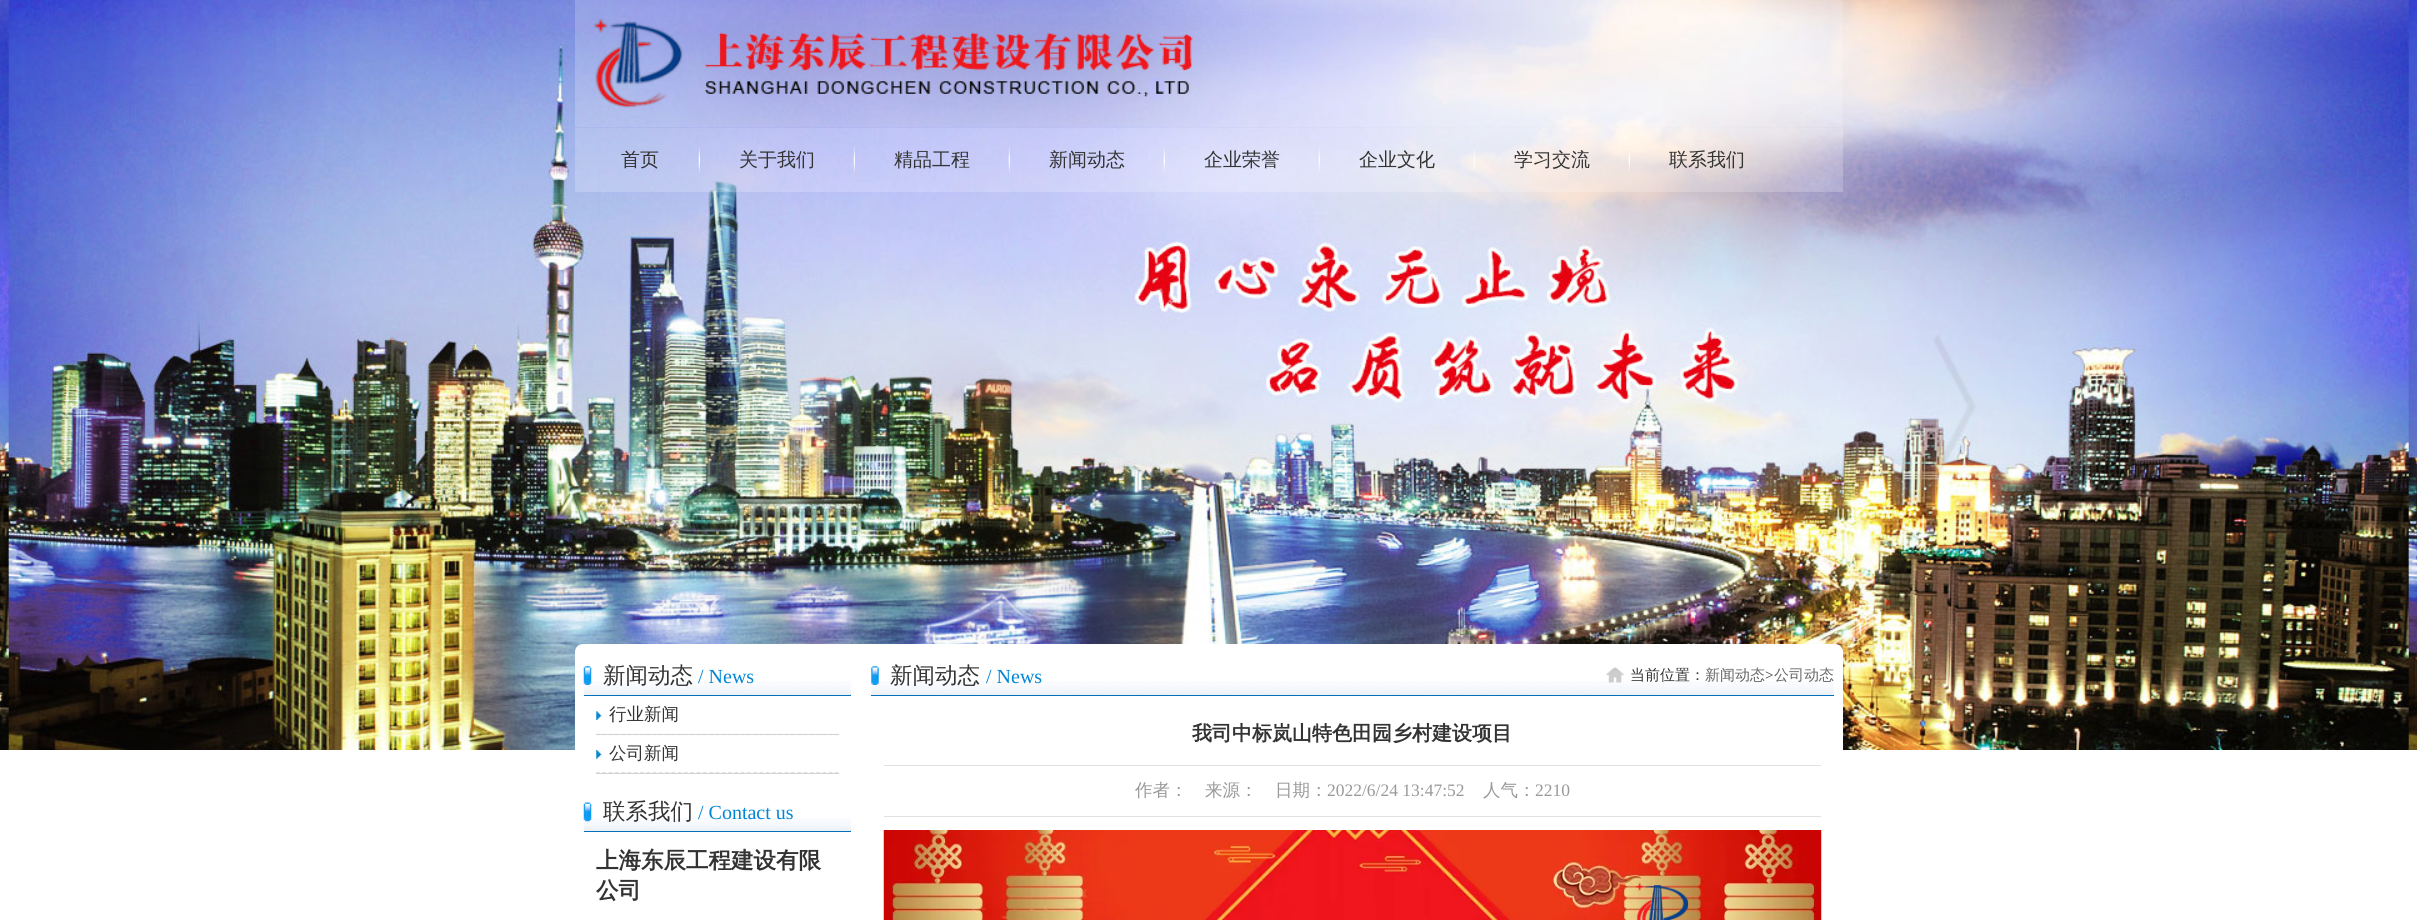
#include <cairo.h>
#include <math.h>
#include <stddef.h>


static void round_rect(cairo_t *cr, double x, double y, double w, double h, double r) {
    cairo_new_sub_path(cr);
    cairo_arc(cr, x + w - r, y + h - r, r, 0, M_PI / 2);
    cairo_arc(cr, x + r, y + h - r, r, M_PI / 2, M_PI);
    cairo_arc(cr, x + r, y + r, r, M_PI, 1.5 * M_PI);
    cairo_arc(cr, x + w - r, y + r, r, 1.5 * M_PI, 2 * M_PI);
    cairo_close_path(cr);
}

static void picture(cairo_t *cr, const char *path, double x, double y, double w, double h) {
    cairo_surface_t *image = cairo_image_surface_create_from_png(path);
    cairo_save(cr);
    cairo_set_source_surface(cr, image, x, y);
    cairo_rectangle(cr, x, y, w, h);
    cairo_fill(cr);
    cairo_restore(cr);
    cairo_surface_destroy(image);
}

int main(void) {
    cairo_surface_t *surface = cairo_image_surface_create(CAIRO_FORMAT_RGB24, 2417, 920);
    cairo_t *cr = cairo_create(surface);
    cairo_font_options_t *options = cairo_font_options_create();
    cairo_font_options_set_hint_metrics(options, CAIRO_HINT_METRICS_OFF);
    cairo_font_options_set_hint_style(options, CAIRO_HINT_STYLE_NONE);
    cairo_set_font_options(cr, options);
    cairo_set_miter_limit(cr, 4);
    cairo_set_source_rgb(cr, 1, 1, 1);
    cairo_paint(cr);
    picture(cr, "img1.png", 0, 0, 2417, 750);
    picture(cr, "img2.png", 356, 335, 41, 141);
    picture(cr, "img3.png", 1933, 335, 43, 142);
    picture(cr, "img4.png", 575, 0, 1268, 128);
    cairo_set_source_rgba(cr, 1, 1, 1, 0.2);
    cairo_rectangle(cr, 575, 128, 1268, 64);
    cairo_fill(cr);
    cairo_select_font_face(cr, "WenQuanYi Zen Hei Medium", CAIRO_FONT_SLANT_NORMAL, CAIRO_FONT_WEIGHT_NORMAL);
    cairo_set_font_size(cr, 19);
    cairo_set_source_rgb(cr, 0.2, 0.2, 0.2);
    cairo_move_to(cr, 621, 166);
    cairo_show_text(cr, "首页");
    picture(cr, "img5.png", 698, 146, 2, 28);
    cairo_move_to(cr, 739, 166);
    cairo_show_text(cr, "关于我们");
    picture(cr, "img6.png", 853, 146, 2, 28);
    cairo_move_to(cr, 894, 166);
    cairo_show_text(cr, "精品工程");
    picture(cr, "img7.png", 1008, 146, 2, 28);
    cairo_move_to(cr, 1049, 166);
    cairo_show_text(cr, "新闻动态");
    picture(cr, "img8.png", 1163, 147, 2, 26);
    cairo_move_to(cr, 1204, 166);
    cairo_show_text(cr, "企业荣誉");
    picture(cr, "img9.png", 1318, 148, 2, 24);
    cairo_move_to(cr, 1359, 166);
    cairo_show_text(cr, "企业文化");
    picture(cr, "img10.png", 1473, 149, 2, 21);
    cairo_move_to(cr, 1514, 166);
    cairo_show_text(cr, "学习交流");
    picture(cr, "img11.png", 1628, 149, 2, 23);
    cairo_move_to(cr, 1669, 166);
    cairo_show_text(cr, "联系我们");
    cairo_set_source_rgb(cr, 1, 1, 1);
    round_rect(cr, 575, 644, 1268, 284, 8);
    cairo_fill(cr);
    picture(cr, "img12.png", 583, 681, 269, 14);
    cairo_set_source_rgb(cr, 0.004, 0.443, 0.741);
    cairo_rectangle(cr, 584, 695, 267, 1);
    cairo_fill(cr);
    picture(cr, "img13.png", 583, 666, 9, 19);
    cairo_set_font_size(cr, 22.5);
    cairo_set_source_rgb(cr, 0.2, 0.2, 0.2);
    cairo_move_to(cr, 603, 683);
    cairo_show_text(cr, "新闻动态");
    cairo_select_font_face(cr, "Liberation Serif", CAIRO_FONT_SLANT_NORMAL, CAIRO_FONT_WEIGHT_NORMAL);
    cairo_set_font_size(cr, 20);
    cairo_set_source_rgb(cr, 0.004, 0.525, 0.835);
    cairo_move_to(cr, 698, 683);
    cairo_show_text(cr, "/ News");
    cairo_new_path(cr);
    cairo_move_to(cr, 596, 734.5);
    cairo_line_to(cr, 839, 734.5);
    cairo_set_source_rgb(cr, 0.8, 0.8, 0.8);
    cairo_set_line_width(cr, 1.2);
    cairo_set_dash(cr, (double[]){3.75, 2.54}, 2, 0);
    cairo_stroke(cr);
    picture(cr, "img14.png", 596, 711, 6, 9);
    cairo_set_source_rgb(cr, 0.827, 0.827, 0.827);
    cairo_rectangle(cr, 596, 734, 243, 1);
    cairo_fill(cr);
    cairo_select_font_face(cr, "WenQuanYi Zen Hei Medium", CAIRO_FONT_SLANT_NORMAL, CAIRO_FONT_WEIGHT_NORMAL);
    cairo_set_font_size(cr, 17.5);
    cairo_set_source_rgb(cr, 0.2, 0.2, 0.2);
    cairo_move_to(cr, 609, 720);
    cairo_show_text(cr, "行业新闻");
    cairo_new_path(cr);
    cairo_move_to(cr, 596, 773);
    cairo_line_to(cr, 839, 773);
    cairo_set_source_rgb(cr, 0.8, 0.8, 0.8);
    cairo_stroke(cr);
    picture(cr, "img15.png", 596, 750, 6, 9);
    cairo_set_source_rgb(cr, 0.827, 0.827, 0.827);
    cairo_rectangle(cr, 596, 773, 243, 1);
    cairo_fill(cr);
    cairo_set_source_rgb(cr, 0.2, 0.2, 0.2);
    cairo_move_to(cr, 609, 759);
    cairo_show_text(cr, "公司新闻");
    picture(cr, "img16.png", 583, 818, 269, 14);
    cairo_set_source_rgb(cr, 0.004, 0.443, 0.741);
    cairo_rectangle(cr, 584, 831, 267, 1);
    cairo_fill(cr);
    picture(cr, "img17.png", 583, 802, 9, 20);
    cairo_set_font_size(cr, 22.5);
    cairo_set_source_rgb(cr, 0.2, 0.2, 0.2);
    cairo_move_to(cr, 603, 819);
    cairo_show_text(cr, "联系我们");
    cairo_select_font_face(cr, "Liberation Serif", CAIRO_FONT_SLANT_NORMAL, CAIRO_FONT_WEIGHT_NORMAL);
    cairo_set_font_size(cr, 20);
    cairo_set_source_rgb(cr, 0.004, 0.525, 0.835);
    cairo_move_to(cr, 698, 819);
    cairo_show_text(cr, "/ Contact us");
    cairo_select_font_face(cr, "WenQuanYi Zen Hei", CAIRO_FONT_SLANT_NORMAL, CAIRO_FONT_WEIGHT_BOLD);
    cairo_set_font_size(cr, 22.5);
    cairo_set_source_rgb(cr, 0.2, 0.2, 0.2);
    cairo_move_to(cr, 596, 868);
    cairo_show_text(cr, "上海东辰工程建设有限");
    cairo_move_to(cr, 596, 898);
    cairo_show_text(cr, "公司");
    picture(cr, "img18.png", 871, 681, 963, 14);
    cairo_set_source_rgb(cr, 0.004, 0.443, 0.741);
    cairo_rectangle(cr, 871, 695, 963, 1);
    cairo_fill(cr);
    picture(cr, "img19.png", 871, 666, 8, 19);
    cairo_select_font_face(cr, "WenQuanYi Zen Hei Medium", CAIRO_FONT_SLANT_NORMAL, CAIRO_FONT_WEIGHT_NORMAL);
    cairo_set_source_rgb(cr, 0.2, 0.2, 0.2);
    cairo_move_to(cr, 890, 683);
    cairo_show_text(cr, "新闻动态");
    cairo_select_font_face(cr, "Liberation Serif", CAIRO_FONT_SLANT_NORMAL, CAIRO_FONT_WEIGHT_NORMAL);
    cairo_set_font_size(cr, 20);
    cairo_set_source_rgb(cr, 0.004, 0.525, 0.835);
    cairo_move_to(cr, 986, 683);
    cairo_show_text(cr, "/ News");
    picture(cr, "img20.png", 1606, 667, 18, 16);
    cairo_select_font_face(cr, "WenQuanYi Zen Hei Medium", CAIRO_FONT_SLANT_NORMAL, CAIRO_FONT_WEIGHT_NORMAL);
    cairo_set_font_size(cr, 15);
    cairo_set_source_rgb(cr, 0.2, 0.2, 0.2);
    cairo_move_to(cr, 1630, 680);
    cairo_show_text(cr, "当前位置：");
    cairo_set_source_rgb(cr, 0.392, 0.392, 0.392);
    cairo_move_to(cr, 1705, 680);
    cairo_show_text(cr, "新闻动态");
    cairo_select_font_face(cr, "Liberation Serif", CAIRO_FONT_SLANT_NORMAL, CAIRO_FONT_WEIGHT_NORMAL);
    cairo_set_source_rgb(cr, 0.2, 0.2, 0.2);
    cairo_move_to(cr, 1765, 680);
    cairo_show_text(cr, ">");
    cairo_select_font_face(cr, "WenQuanYi Zen Hei Medium", CAIRO_FONT_SLANT_NORMAL, CAIRO_FONT_WEIGHT_NORMAL);
    cairo_set_source_rgb(cr, 0.392, 0.392, 0.392);
    cairo_move_to(cr, 1774, 680);
    cairo_show_text(cr, "公司动态");
    cairo_select_font_face(cr, "WenQuanYi Zen Hei", CAIRO_FONT_SLANT_NORMAL, CAIRO_FONT_WEIGHT_BOLD);
    cairo_set_font_size(cr, 20);
    cairo_set_source_rgb(cr, 0.2, 0.2, 0.2);
    cairo_move_to(cr, 1192, 740);
    cairo_show_text(cr, "我司中标岚山特色田园乡村建设项目");
    cairo_set_source_rgb(cr, 0.882, 0.882, 0.882);
    cairo_rectangle(cr, 884, 765, 937, 1);
    cairo_fill(cr);
    cairo_rectangle(cr, 884, 816, 937, 1);
    cairo_fill(cr);
    cairo_select_font_face(cr, "WenQuanYi Zen Hei Medium", CAIRO_FONT_SLANT_NORMAL, CAIRO_FONT_WEIGHT_NORMAL);
    cairo_set_font_size(cr, 17.5);
    cairo_set_source_rgb(cr, 0.6, 0.6, 0.6);
    cairo_move_to(cr, 1135, 796);
    cairo_show_text(cr, "作者：　来源：　日期：");
    cairo_select_font_face(cr, "Liberation Serif", CAIRO_FONT_SLANT_NORMAL, CAIRO_FONT_WEIGHT_NORMAL);
    cairo_move_to(cr, 1327, 796);
    cairo_show_text(cr, "2022/6/24 13:47:52");
    cairo_select_font_face(cr, "WenQuanYi Zen Hei Medium", CAIRO_FONT_SLANT_NORMAL, CAIRO_FONT_WEIGHT_NORMAL);
    cairo_move_to(cr, 1483, 796);
    cairo_show_text(cr, "人气：");
    cairo_select_font_face(cr, "Liberation Serif", CAIRO_FONT_SLANT_NORMAL, CAIRO_FONT_WEIGHT_NORMAL);
    cairo_move_to(cr, 1535, 796);
    cairo_show_text(cr, "2210");
    picture(cr, "img21.png", 883, 830, 939, 90);
    cairo_surface_write_to_png(surface, "page.png");
    cairo_font_options_destroy(options);
    cairo_destroy(cr);
    cairo_surface_destroy(surface);
    return 0;
}
